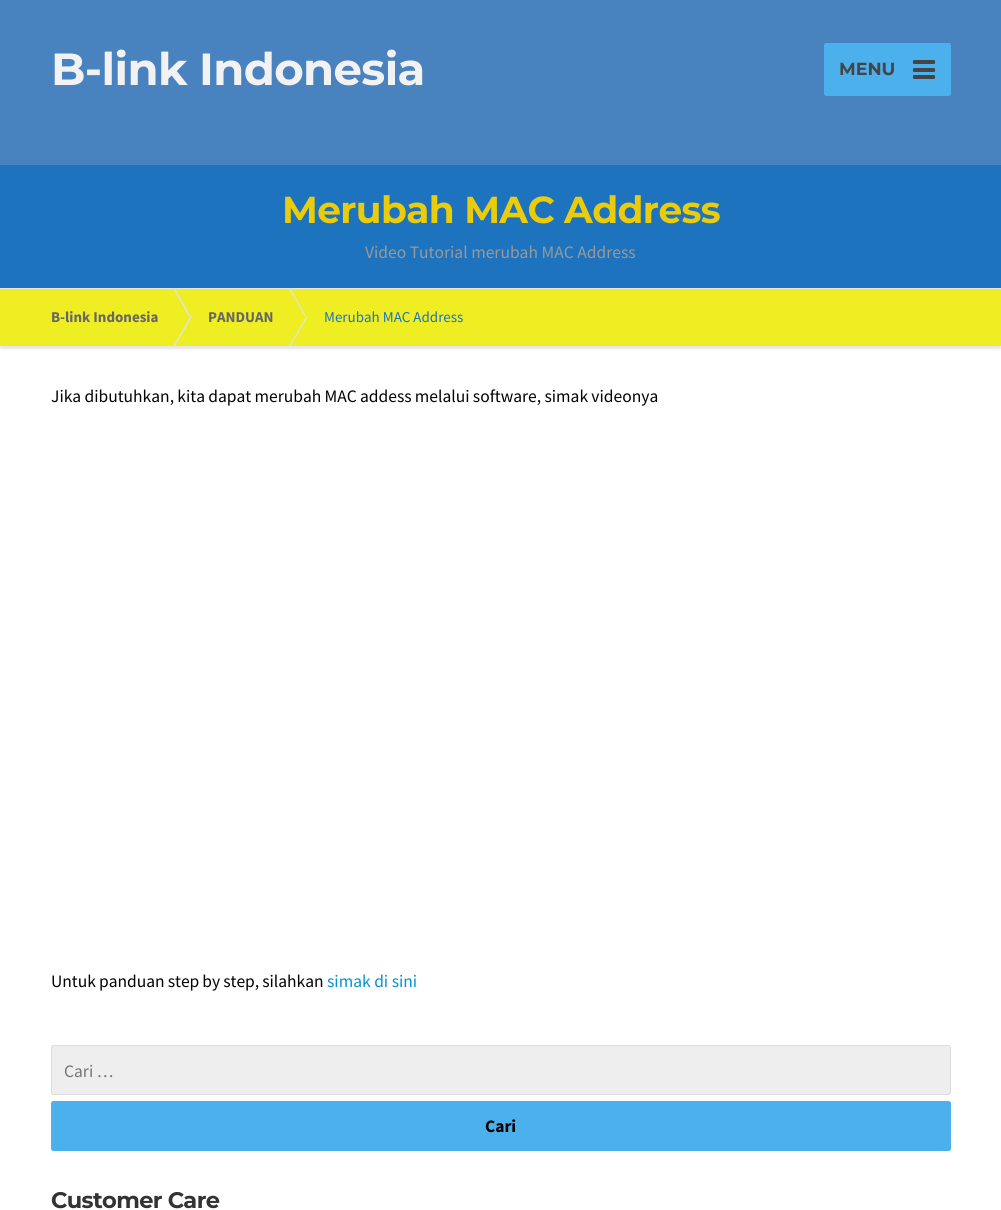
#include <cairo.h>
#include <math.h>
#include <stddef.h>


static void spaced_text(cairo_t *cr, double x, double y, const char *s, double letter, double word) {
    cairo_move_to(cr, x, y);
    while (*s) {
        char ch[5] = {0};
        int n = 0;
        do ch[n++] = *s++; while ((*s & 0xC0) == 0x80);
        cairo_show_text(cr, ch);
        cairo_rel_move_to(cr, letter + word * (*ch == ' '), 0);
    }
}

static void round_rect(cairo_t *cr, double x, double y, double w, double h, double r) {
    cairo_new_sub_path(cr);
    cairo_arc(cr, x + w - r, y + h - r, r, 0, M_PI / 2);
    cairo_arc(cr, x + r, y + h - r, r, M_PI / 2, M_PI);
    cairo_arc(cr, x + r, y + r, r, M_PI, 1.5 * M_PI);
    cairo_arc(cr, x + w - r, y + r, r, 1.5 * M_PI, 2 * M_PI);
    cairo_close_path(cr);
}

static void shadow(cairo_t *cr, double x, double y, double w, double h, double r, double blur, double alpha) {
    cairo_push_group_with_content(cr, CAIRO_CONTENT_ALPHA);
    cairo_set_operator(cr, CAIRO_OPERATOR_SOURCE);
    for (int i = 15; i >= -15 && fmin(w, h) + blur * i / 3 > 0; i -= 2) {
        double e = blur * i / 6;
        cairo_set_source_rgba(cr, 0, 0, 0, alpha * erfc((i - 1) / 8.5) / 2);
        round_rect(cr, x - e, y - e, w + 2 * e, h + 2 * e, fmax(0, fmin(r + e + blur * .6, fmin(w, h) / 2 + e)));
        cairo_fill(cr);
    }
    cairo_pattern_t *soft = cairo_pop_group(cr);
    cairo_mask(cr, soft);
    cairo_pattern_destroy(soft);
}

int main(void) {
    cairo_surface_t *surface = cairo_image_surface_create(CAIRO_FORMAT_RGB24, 1001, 1210);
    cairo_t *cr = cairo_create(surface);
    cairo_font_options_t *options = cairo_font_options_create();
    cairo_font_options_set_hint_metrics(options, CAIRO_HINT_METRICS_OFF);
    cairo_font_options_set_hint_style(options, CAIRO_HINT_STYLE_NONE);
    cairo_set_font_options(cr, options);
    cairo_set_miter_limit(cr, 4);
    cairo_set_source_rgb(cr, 1, 1, 1);
    cairo_paint(cr);
    cairo_set_source_rgb(cr, 0.282, 0.514, 0.749);
    cairo_rectangle(cr, 0, 0, 1001, 165);
    cairo_fill(cr);
    cairo_select_font_face(cr, "Montserrat Thin", CAIRO_FONT_SLANT_NORMAL, CAIRO_FONT_WEIGHT_NORMAL);
    cairo_set_font_size(cr, 45);
    cairo_set_source_rgb(cr, 0.949, 0.949, 0.949);
    spaced_text(cr, 51, 85, "B-link Indonesia", -0.6, 0);
    cairo_set_source_rgb(cr, 0.294, 0.69, 0.918);
    round_rect(cr, 824, 43, 127, 53, 2.5);
    cairo_fill(cr);
    cairo_set_font_size(cr, 17.5);
    cairo_set_source_rgb(cr, 0.271, 0.271, 0.271);
    cairo_move_to(cr, 839, 75);
    cairo_show_text(cr, "MENU");
    round_rect(cr, 913, 60, 22, 4, 1);
    cairo_fill(cr);
    round_rect(cr, 913, 68, 22, 4, 1);
    cairo_fill(cr);
    round_rect(cr, 913, 75, 22, 4, 1);
    cairo_fill(cr);
    cairo_set_source_rgb(cr, 0.118, 0.451, 0.745);
    cairo_rectangle(cr, 0, 165, 1001, 123);
    cairo_fill(cr);
    cairo_set_source_rgb(cr, 0.902, 0.902, 0.902);
    cairo_rectangle(cr, 0, 288, 1001, 1);
    cairo_fill(cr);
    cairo_set_font_size(cr, 37.5);
    cairo_set_source_rgb(cr, 0.918, 0.8, 0.043);
    spaced_text(cr, 282, 223, "Merubah MAC Address", -0.6, 0);
    cairo_select_font_face(cr, "Source Sans Pro", CAIRO_FONT_SLANT_NORMAL, CAIRO_FONT_WEIGHT_NORMAL);
    cairo_set_font_size(cr, 17.5);
    cairo_set_source_rgb(cr, 0.6, 0.6, 0.6);
    cairo_move_to(cr, 365, 258);
    cairo_show_text(cr, "Video Tutorial merubah MAC Address");
    cairo_set_source_rgb(cr, 0.902, 0.902, 0.902);
    shadow(cr, 0, 291, 1001, 58, 0, 1, 1);
    cairo_set_source_rgb(cr, 0.933, 0.933, 0.133);
    cairo_rectangle(cr, 0, 289, 1001, 57);
    cairo_fill(cr);
    cairo_select_font_face(cr, "Source Sans Pro", CAIRO_FONT_SLANT_NORMAL, CAIRO_FONT_WEIGHT_BOLD);
    cairo_set_font_size(cr, 15);
    cairo_set_source_rgb(cr, 0.4, 0.4, 0.4);
    cairo_move_to(cr, 51, 322);
    cairo_show_text(cr, "B-link Indonesia");
    cairo_set_source_rgb(cr, 0.886, 0.886, 0.886);
    cairo_new_path(cr);
    cairo_move_to(cr, 173.5, 289);
    cairo_line_to(cr, 174.5, 288);
    cairo_line_to(cr, 191.5, 317.5);
    cairo_line_to(cr, 190, 318);
    cairo_close_path(cr);
    cairo_fill(cr);
    cairo_new_path(cr);
    cairo_move_to(cr, 190, 317);
    cairo_line_to(cr, 191.5, 317.5);
    cairo_line_to(cr, 174.5, 347);
    cairo_line_to(cr, 173.5, 346);
    cairo_close_path(cr);
    cairo_fill(cr);
    cairo_set_source_rgb(cr, 0.4, 0.4, 0.4);
    cairo_move_to(cr, 208, 322);
    cairo_show_text(cr, "PANDUAN");
    cairo_set_source_rgb(cr, 0.886, 0.886, 0.886);
    cairo_new_path(cr);
    cairo_move_to(cr, 289, 289);
    cairo_line_to(cr, 290, 288);
    cairo_line_to(cr, 307, 317.5);
    cairo_line_to(cr, 306, 318);
    cairo_close_path(cr);
    cairo_fill(cr);
    cairo_new_path(cr);
    cairo_move_to(cr, 306, 317);
    cairo_line_to(cr, 307, 317.5);
    cairo_line_to(cr, 290, 347);
    cairo_line_to(cr, 289, 346);
    cairo_close_path(cr);
    cairo_fill(cr);
    cairo_select_font_face(cr, "Source Sans Pro", CAIRO_FONT_SLANT_NORMAL, CAIRO_FONT_WEIGHT_NORMAL);
    cairo_set_source_rgb(cr, 0.118, 0.451, 0.745);
    cairo_move_to(cr, 324, 322);
    cairo_show_text(cr, "Merubah MAC Address");
    cairo_set_font_size(cr, 17.5);
    cairo_set_source_rgb(cr, 0.008, 0.008, 0.008);
    spaced_text(cr, 51, 402, "Jika dibutuhkan, kita dapat merubah MAC addess melalui software, simak videonya", 0, -0.25);
    spaced_text(cr, 51, 987, "Untuk panduan step by step, silahkan", 0, -0.5);
    cairo_set_source_rgb(cr, 0.008, 0.573, 0.82);
    cairo_move_to(cr, 327, 987);
    cairo_show_text(cr, "simak di sini");
    cairo_set_source_rgb(cr, 0.933, 0.933, 0.933);
    round_rect(cr, 51.5, 1045.5, 899, 49, 2);
    cairo_fill_preserve(cr);
    cairo_set_source_rgb(cr, 0.867, 0.867, 0.867);
    cairo_set_line_width(cr, 1);
    cairo_stroke(cr);
    cairo_set_source_rgb(cr, 0.459, 0.459, 0.459);
    cairo_move_to(cr, 64, 1077);
    cairo_show_text(cr, "Cari …");
    cairo_set_source_rgb(cr, 0.294, 0.69, 0.918);
    round_rect(cr, 51, 1101, 900, 50, 2.5);
    cairo_fill(cr);
    cairo_select_font_face(cr, "Source Sans Pro", CAIRO_FONT_SLANT_NORMAL, CAIRO_FONT_WEIGHT_BOLD);
    cairo_set_source_rgb(cr, 0.008, 0.008, 0.008);
    cairo_move_to(cr, 485, 1132);
    cairo_show_text(cr, "Cari");
    cairo_select_font_face(cr, "Montserrat Thin", CAIRO_FONT_SLANT_NORMAL, CAIRO_FONT_WEIGHT_NORMAL);
    cairo_set_font_size(cr, 22.5);
    cairo_set_source_rgb(cr, 0.2, 0.2, 0.2);
    spaced_text(cr, 51, 1208, "Customer Care", -0.6, 0);
    cairo_surface_write_to_png(surface, "page.png");
    cairo_font_options_destroy(options);
    cairo_destroy(cr);
    cairo_surface_destroy(surface);
    return 0;
}
